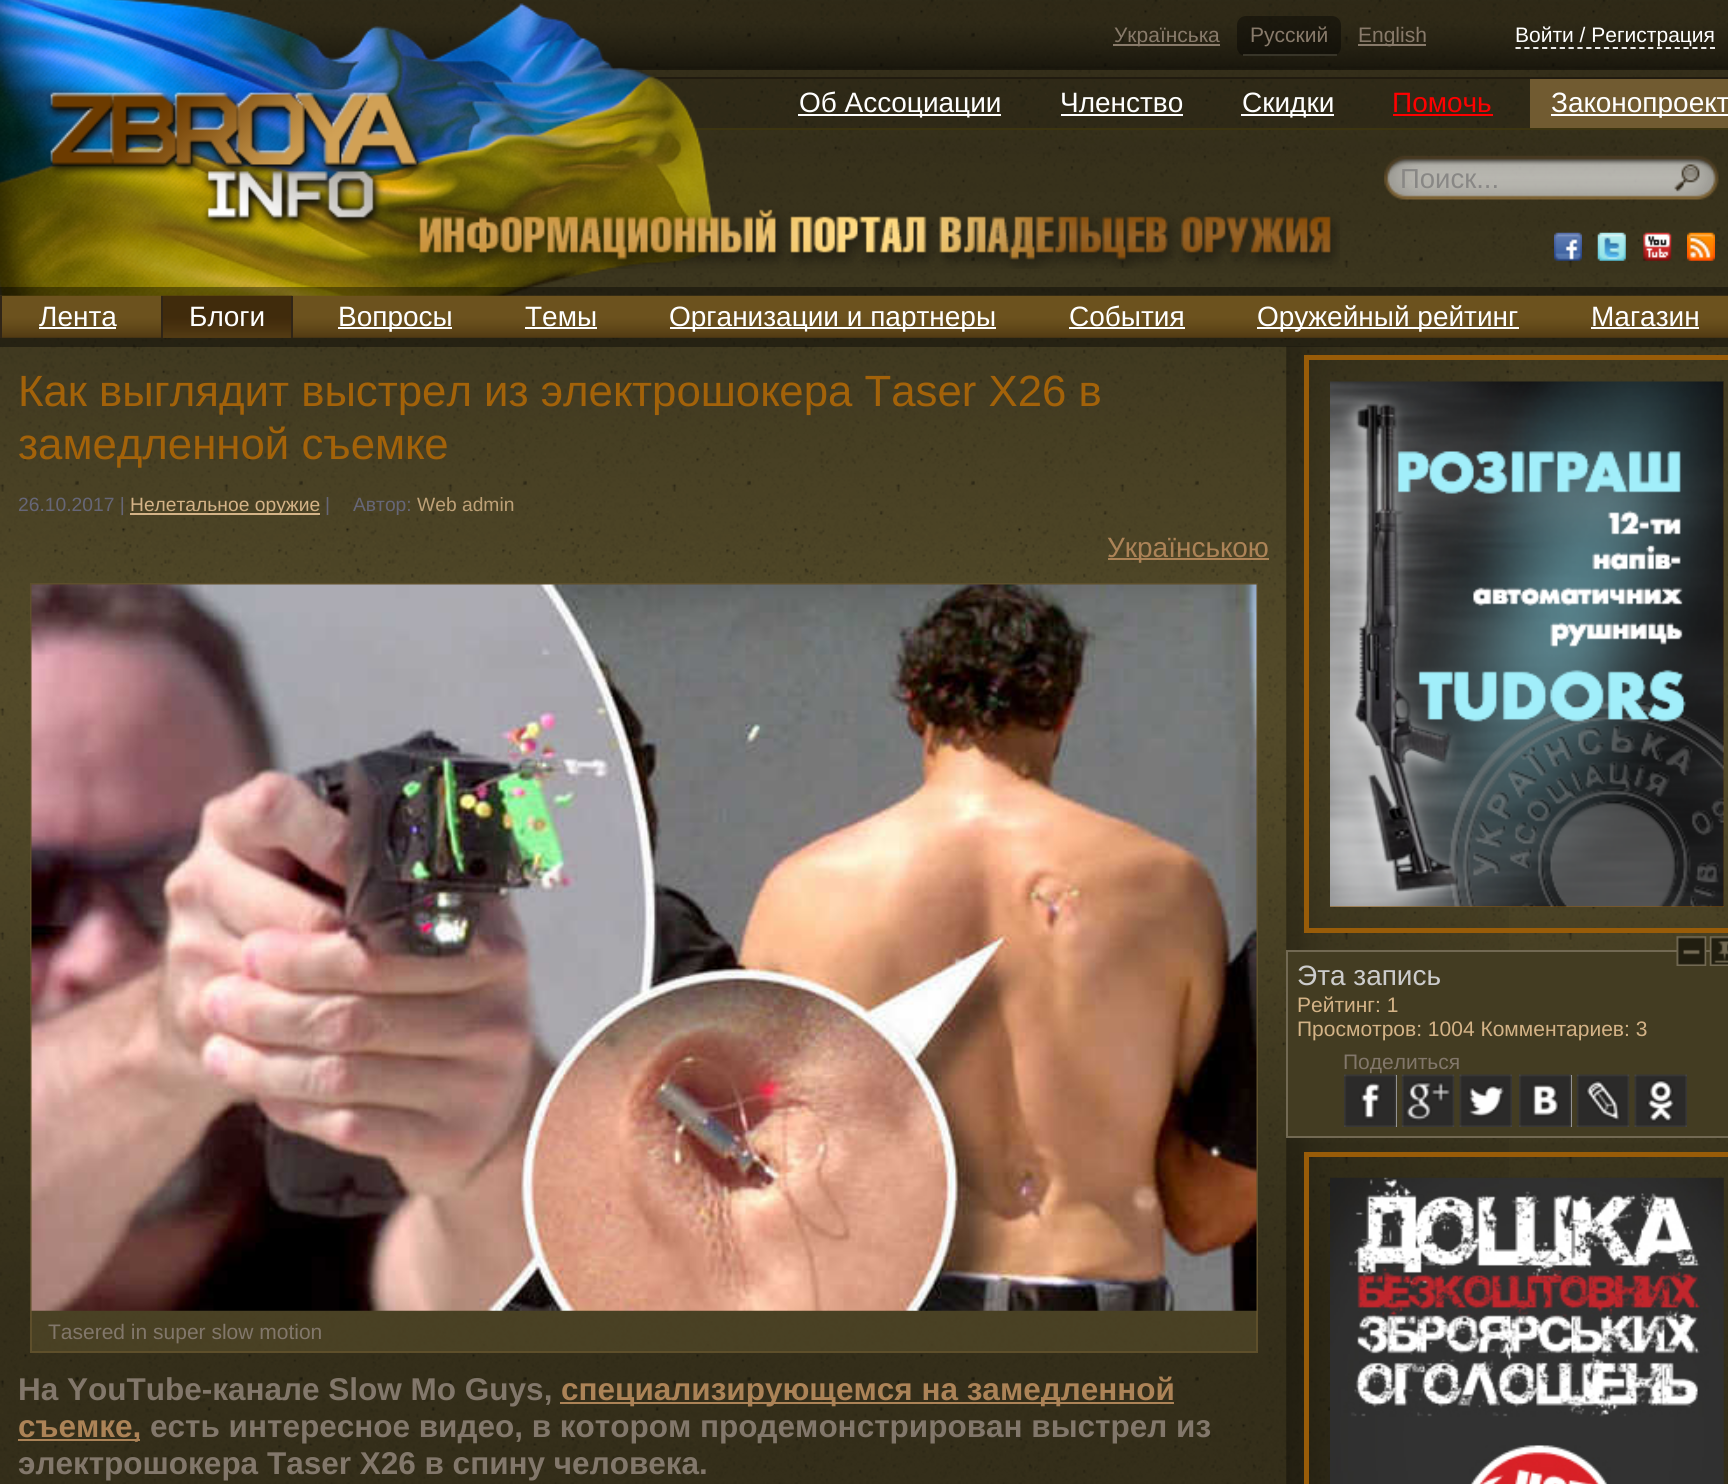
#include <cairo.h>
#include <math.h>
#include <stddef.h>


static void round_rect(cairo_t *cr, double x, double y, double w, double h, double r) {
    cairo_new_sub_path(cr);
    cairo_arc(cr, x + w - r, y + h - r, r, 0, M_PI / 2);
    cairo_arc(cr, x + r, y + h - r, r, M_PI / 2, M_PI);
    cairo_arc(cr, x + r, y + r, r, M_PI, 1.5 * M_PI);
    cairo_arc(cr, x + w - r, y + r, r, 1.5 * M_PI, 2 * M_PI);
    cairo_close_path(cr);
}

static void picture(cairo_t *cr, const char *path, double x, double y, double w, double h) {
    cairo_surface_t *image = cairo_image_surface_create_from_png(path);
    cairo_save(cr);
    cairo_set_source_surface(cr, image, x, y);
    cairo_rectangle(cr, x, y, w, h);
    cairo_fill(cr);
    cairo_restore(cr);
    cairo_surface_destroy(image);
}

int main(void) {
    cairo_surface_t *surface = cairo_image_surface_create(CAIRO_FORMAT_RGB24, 1728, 1484);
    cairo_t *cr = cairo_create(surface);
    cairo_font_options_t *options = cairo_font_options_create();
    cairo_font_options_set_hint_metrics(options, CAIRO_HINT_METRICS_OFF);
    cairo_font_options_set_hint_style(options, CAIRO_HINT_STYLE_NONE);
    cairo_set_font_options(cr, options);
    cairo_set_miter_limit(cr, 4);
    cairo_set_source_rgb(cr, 1, 1, 1);
    cairo_paint(cr);
    picture(cr, "img1.png", 0, 0, 1728, 1484);
    picture(cr, "img3.png", 108, 0, 1620, 70);
    cairo_set_source_rgba(cr, 0, 0, 0, 0.1);
    cairo_rectangle(cr, 652, 79, 878, 49);
    cairo_fill(cr);
    cairo_set_source_rgb(cr, 0.129, 0.106, 0.063);
    cairo_rectangle(cr, 648, 77, 1080, 2);
    cairo_fill(cr);
    cairo_set_source_rgb(cr, 0.235, 0.204, 0.063);
    cairo_rectangle(cr, 692, 128, 1036, 2);
    cairo_fill(cr);
    picture(cr, "img2.png", 0, 0, 714, 296);
    cairo_set_source_rgb(cr, 0.533, 0.478, 0.416);
    cairo_rectangle(cr, 1113, 44, 107, 2);
    cairo_fill(cr);
    cairo_select_font_face(cr, "Liberation Sans", CAIRO_FONT_SLANT_NORMAL, CAIRO_FONT_WEIGHT_NORMAL);
    cairo_set_font_size(cr, 21);
    cairo_move_to(cr, 1114, 42);
    cairo_show_text(cr, "Українська");
    cairo_set_source_rgba(cr, 0, 0, 0, 0.4);
    round_rect(cr, 1237, 16, 104, 40, 9);
    cairo_fill(cr);
    cairo_set_source_rgb(cr, 0.533, 0.478, 0.416);
    cairo_move_to(cr, 1250, 42);
    cairo_show_text(cr, "Русский");
    cairo_set_source_rgb(cr, 0.22, 0.208, 0.161);
    cairo_rectangle(cr, 1243, 54, 94, 2);
    cairo_fill(cr);
    cairo_set_source_rgb(cr, 0.533, 0.478, 0.416);
    cairo_rectangle(cr, 1358, 44, 68, 2);
    cairo_fill(cr);
    cairo_move_to(cr, 1358, 42);
    cairo_show_text(cr, "English");
    cairo_set_source_rgb(cr, 1, 1, 1);
    cairo_move_to(cr, 1515, 42);
    cairo_show_text(cr, "Войти / Регистрация");
    cairo_new_path(cr);
    cairo_move_to(cr, 1515.5, 48);
    cairo_line_to(cr, 1715, 48);
    cairo_set_line_width(cr, 1.8);
    cairo_set_dash(cr, (double[]){5.25, 3.59}, 2, 0);
    cairo_stroke(cr);
    picture(cr, "img4.png", 46, 89, 1294, 180);
    cairo_rectangle(cr, 798, 114, 203, 2);
    cairo_fill(cr);
    cairo_set_font_size(cr, 28);
    cairo_move_to(cr, 799, 112);
    cairo_show_text(cr, "Об Ассоциации");
    cairo_move_to(cr, 1060, 112);
    cairo_show_text(cr, "Членство");
    cairo_rectangle(cr, 1061, 114, 122, 2);
    cairo_fill(cr);
    cairo_rectangle(cr, 1241, 114, 93, 2);
    cairo_fill(cr);
    cairo_move_to(cr, 1242, 112);
    cairo_show_text(cr, "Скидки");
    cairo_set_source_rgb(cr, 1, 0, 0);
    cairo_move_to(cr, 1392, 112);
    cairo_show_text(cr, "Помочь");
    cairo_rectangle(cr, 1393, 114, 100, 2);
    cairo_fill(cr);
    cairo_set_source_rgb(cr, 0.443, 0.357, 0.192);
    cairo_rectangle(cr, 1530, 79, 198, 49);
    cairo_fill(cr);
    cairo_set_source_rgb(cr, 1, 1, 1);
    cairo_rectangle(cr, 1551, 114, 177, 2);
    cairo_fill(cr);
    cairo_move_to(cr, 1551, 112);
    cairo_show_text(cr, "Законопроект");
    picture(cr, "img5.png", 1384, 155, 335, 45);
    cairo_set_font_size(cr, 27.5);
    cairo_set_source_rgb(cr, 0.533, 0.529, 0.522);
    cairo_move_to(cr, 1400, 188);
    cairo_show_text(cr, "Поиск...");
    picture(cr, "img6.png", 1554, 232, 28, 29);
    picture(cr, "img7.png", 1597, 232, 29, 29);
    picture(cr, "img8.png", 1643, 232, 29, 29);
    picture(cr, "img9.png", 1687, 232, 28, 29);
    cairo_set_source_rgba(cr, 0, 0, 0, 0.4);
    cairo_rectangle(cr, 0, 287, 1728, 60);
    cairo_fill(cr);
    picture(cr, "img10.png", 0, 295, 1728, 43);
    cairo_set_source_rgb(cr, 0.188, 0.145, 0.09);
    cairo_rectangle(cr, 0, 296, 2, 42);
    cairo_fill(cr);
    cairo_set_font_size(cr, 28);
    cairo_set_source_rgb(cr, 1, 1, 1);
    cairo_move_to(cr, 39, 326);
    cairo_show_text(cr, "Лента");
    cairo_rectangle(cr, 39, 327, 77, 2);
    cairo_fill(cr);
    picture(cr, "img11.png", 161, 295, 132, 43);
    cairo_set_source_rgb(cr, 0.188, 0.145, 0.09);
    cairo_rectangle(cr, 291, 296, 2, 42);
    cairo_fill(cr);
    cairo_rectangle(cr, 161, 296, 2, 42);
    cairo_fill(cr);
    cairo_set_source_rgb(cr, 1, 1, 1);
    cairo_move_to(cr, 189, 326);
    cairo_show_text(cr, "Блоги");
    cairo_rectangle(cr, 338, 327, 114, 2);
    cairo_fill(cr);
    cairo_move_to(cr, 338, 326);
    cairo_show_text(cr, "Вопросы");
    cairo_move_to(cr, 525, 326);
    cairo_show_text(cr, "Темы");
    cairo_rectangle(cr, 525, 327, 72, 2);
    cairo_fill(cr);
    cairo_rectangle(cr, 670, 327, 326, 2);
    cairo_fill(cr);
    cairo_move_to(cr, 669, 326);
    cairo_show_text(cr, "Организации и партнеры");
    cairo_move_to(cr, 1069, 326);
    cairo_show_text(cr, "События");
    cairo_rectangle(cr, 1069, 327, 116, 2);
    cairo_fill(cr);
    cairo_rectangle(cr, 1257, 327, 262, 2);
    cairo_fill(cr);
    cairo_move_to(cr, 1257, 326);
    cairo_show_text(cr, "Оружейный рейтинг");
    cairo_move_to(cr, 1591, 326);
    cairo_show_text(cr, "Магазин");
    cairo_rectangle(cr, 1591, 327, 108, 2);
    cairo_fill(cr);
    picture(cr, "img12.png", 1286, 346, 223, 1138);
    cairo_set_font_size(cr, 43.75);
    cairo_set_source_rgb(cr, 0.639, 0.384, 0.039);
    cairo_move_to(cr, 18, 406);
    cairo_show_text(cr, "Как выглядит выстрел из электрошокера Taser X26 в");
    cairo_move_to(cr, 18, 459);
    cairo_show_text(cr, "замедленной съемке");
    cairo_set_font_size(cr, 19.25);
    cairo_set_source_rgb(cr, 0.4, 0.4, 0.467);
    cairo_move_to(cr, 18, 511);
    cairo_show_text(cr, "26.10.2017 |");
    cairo_set_source_rgb(cr, 0.831, 0.702, 0.529);
    cairo_rectangle(cr, 130, 513, 190, 2);
    cairo_fill(cr);
    cairo_move_to(cr, 130, 511);
    cairo_show_text(cr, "Нелетальное оружие");
    cairo_set_source_rgb(cr, 0.4, 0.4, 0.467);
    cairo_move_to(cr, 325, 511);
    cairo_show_text(cr, "|");
    cairo_move_to(cr, 353, 511);
    cairo_show_text(cr, "Автор:");
    cairo_set_source_rgb(cr, 0.745, 0.631, 0.467);
    cairo_move_to(cr, 417, 511);
    cairo_show_text(cr, "Web admin");
    cairo_set_source_rgb(cr, 0.675, 0.514, 0.341);
    cairo_rectangle(cr, 1108, 558, 161, 2);
    cairo_fill(cr);
    cairo_set_font_size(cr, 28);
    cairo_move_to(cr, 1107, 557);
    cairo_show_text(cr, "Українською");
    cairo_set_source_rgba(cr, 0.325, 0.29, 0.161, 0.7);
    cairo_rectangle(cr, 32, 1310, 1224, 41);
    cairo_fill(cr);
    cairo_rectangle(cr, 31, 584, 1226, 768);
    cairo_set_source_rgb(cr, 0.369, 0.31, 0.169);
    cairo_set_line_width(cr, 2);
    cairo_set_dash(cr, NULL, 0, 0);
    cairo_stroke(cr);
    picture(cr, "img13.png", 31, 584, 1226, 727);
    cairo_set_font_size(cr, 21);
    cairo_set_source_rgb(cr, 0.51, 0.467, 0.42);
    cairo_move_to(cr, 48, 1339);
    cairo_show_text(cr, "Tasered in super slow motion");
    cairo_select_font_face(cr, "Liberation Sans", CAIRO_FONT_SLANT_NORMAL, CAIRO_FONT_WEIGHT_BOLD);
    cairo_set_font_size(cr, 31.5);
    cairo_move_to(cr, 18, 1400);
    cairo_show_text(cr, "На YouTube-канале Slow Mo Guys,");
    cairo_set_source_rgb(cr, 0.675, 0.514, 0.341);
    cairo_rectangle(cr, 560, 1402, 614, 2);
    cairo_fill(cr);
    cairo_move_to(cr, 561, 1400);
    cairo_show_text(cr, "специализирующемся на замедленной");
    cairo_rectangle(cr, 18, 1439, 122, 2);
    cairo_fill(cr);
    cairo_move_to(cr, 18, 1437);
    cairo_show_text(cr, "съемке,");
    cairo_set_source_rgb(cr, 0.51, 0.467, 0.42);
    cairo_move_to(cr, 150, 1437);
    cairo_show_text(cr, "есть интересное видео, в котором продемонстрирован выстрел из");
    cairo_move_to(cr, 18, 1474);
    cairo_show_text(cr, "электрошокера Taser X26 в спину человека.");
    cairo_rectangle(cr, 1306.5, 357.5, 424, 573);
    cairo_set_source_rgb(cr, 0.6, 0.361, 0.035);
    cairo_set_line_width(cr, 5);
    cairo_stroke(cr);
    cairo_rectangle(cr, 1330, 382, 394, 525);
    cairo_fill(cr);
    picture(cr, "img14.png", 1330, 381, 394, 526);
    cairo_rectangle(cr, 1306.5, 1154.5, 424, 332);
    cairo_stroke(cr);
    picture(cr, "img15.png", 1330, 1177, 394, 307);
    cairo_set_source_rgb(cr, 0.263, 0.235, 0.133);
    cairo_rectangle(cr, 1287, 951, 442, 186);
    cairo_fill_preserve(cr);
    cairo_set_source_rgb(cr, 0.447, 0.412, 0.325);
    cairo_set_line_width(cr, 2);
    cairo_stroke(cr);
    picture(cr, "img16.png", 1676, 936, 31, 30);
    picture(cr, "img17.png", 1709, 936, 19, 30);
    cairo_select_font_face(cr, "Liberation Sans", CAIRO_FONT_SLANT_NORMAL, CAIRO_FONT_WEIGHT_NORMAL);
    cairo_set_font_size(cr, 28);
    cairo_set_source_rgb(cr, 0.8, 0.8, 0.8);
    cairo_move_to(cr, 1297, 985);
    cairo_show_text(cr, "Эта запись");
    cairo_set_font_size(cr, 21);
    cairo_set_source_rgb(cr, 0.831, 0.702, 0.529);
    cairo_move_to(cr, 1297, 1012);
    cairo_show_text(cr, "Рейтинг: 1");
    cairo_move_to(cr, 1297, 1036);
    cairo_show_text(cr, "Просмотров: 1004 Комментариев: 3");
    cairo_set_source_rgb(cr, 0.51, 0.467, 0.42);
    cairo_move_to(cr, 1343, 1069);
    cairo_show_text(cr, "Поделиться");
    cairo_set_source_rgb(cr, 0.937, 0.937, 0.937);
    cairo_rectangle(cr, 1396, 1075, 1, 52);
    cairo_fill(cr);
    picture(cr, "img18.png", 1344, 1074, 53, 53);
    picture(cr, "img19.png", 1401, 1074, 54, 53);
    picture(cr, "img20.png", 1459, 1074, 53, 53);
    cairo_rectangle(cr, 1571, 1075, 1, 52);
    cairo_fill(cr);
    picture(cr, "img21.png", 1519, 1074, 53, 53);
    picture(cr, "img22.png", 1576, 1074, 54, 53);
    picture(cr, "img23.png", 1634, 1074, 53, 53);
    cairo_surface_write_to_png(surface, "page.png");
    cairo_font_options_destroy(options);
    cairo_destroy(cr);
    cairo_surface_destroy(surface);
    return 0;
}
